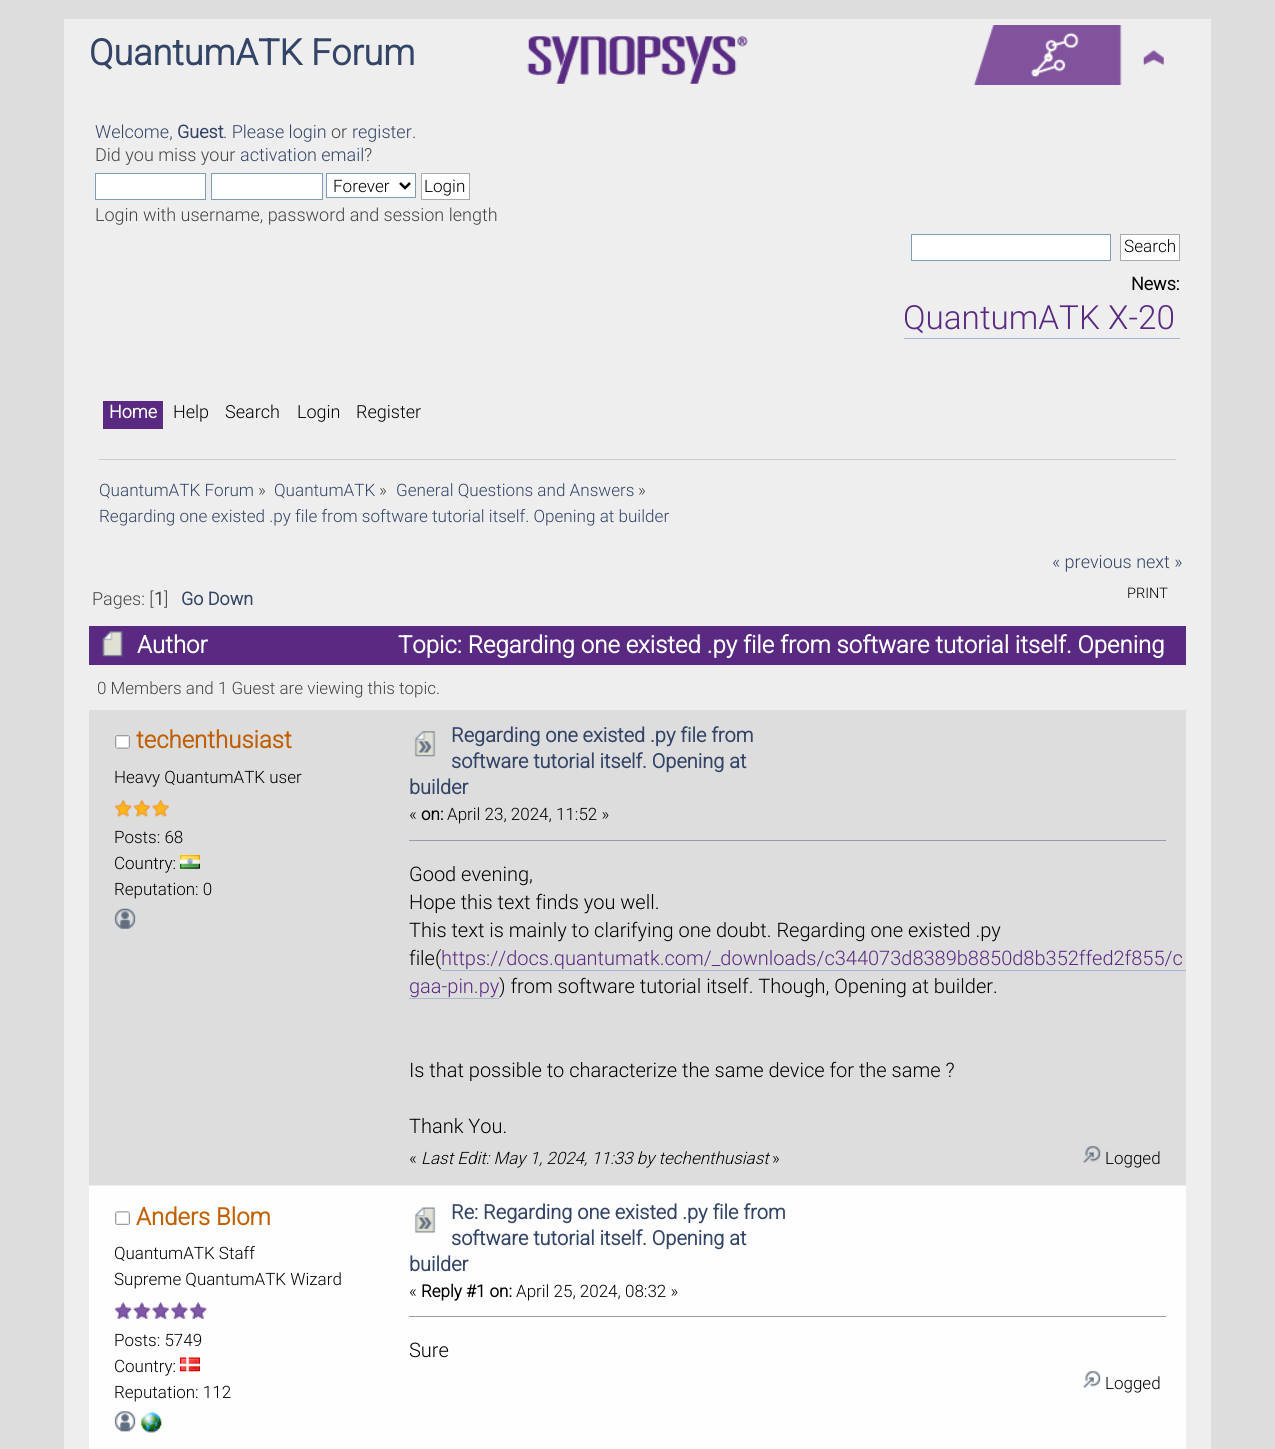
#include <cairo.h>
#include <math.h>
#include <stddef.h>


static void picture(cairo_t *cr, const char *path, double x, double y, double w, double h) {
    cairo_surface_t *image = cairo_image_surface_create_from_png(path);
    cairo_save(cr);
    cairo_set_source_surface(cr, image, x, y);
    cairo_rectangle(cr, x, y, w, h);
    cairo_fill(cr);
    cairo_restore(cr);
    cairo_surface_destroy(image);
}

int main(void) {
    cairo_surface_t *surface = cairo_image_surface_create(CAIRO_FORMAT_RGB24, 1275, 1449);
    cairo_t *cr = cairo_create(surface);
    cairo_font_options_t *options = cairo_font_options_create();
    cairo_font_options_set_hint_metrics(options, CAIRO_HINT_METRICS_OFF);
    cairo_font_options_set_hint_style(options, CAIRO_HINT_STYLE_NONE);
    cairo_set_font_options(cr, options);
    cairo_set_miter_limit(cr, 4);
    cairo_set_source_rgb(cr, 0.867, 0.867, 0.867);
    cairo_paint(cr);
    cairo_set_source_rgb(cr, 0.933, 0.933, 0.933);
    cairo_rectangle(cr, 64, 19, 1147, 1430);
    cairo_fill(cr);
    cairo_select_font_face(cr, "Roboto", CAIRO_FONT_SLANT_NORMAL, CAIRO_FONT_WEIGHT_BOLD);
    cairo_set_font_size(cr, 36);
    cairo_set_source_rgb(cr, 0.2, 0.267, 0.4);
    cairo_move_to(cr, 89, 65);
    cairo_show_text(cr, "QuantumATK Forum");
    picture(cr, "img1.png", 527, 35, 221, 49);
    picture(cr, "img2.png", 973, 25, 149, 60);
    picture(cr, "img3.png", 1143, 49, 21, 17);
    cairo_select_font_face(cr, "Roboto Light", CAIRO_FONT_SLANT_NORMAL, CAIRO_FONT_WEIGHT_NORMAL);
    cairo_set_font_size(cr, 18);
    cairo_move_to(cr, 95, 138);
    cairo_show_text(cr, "Welcome,");
    cairo_select_font_face(cr, "Roboto", CAIRO_FONT_SLANT_NORMAL, CAIRO_FONT_WEIGHT_BOLD);
    cairo_move_to(cr, 177, 138);
    cairo_show_text(cr, "Guest");
    cairo_select_font_face(cr, "Roboto Light", CAIRO_FONT_SLANT_NORMAL, CAIRO_FONT_WEIGHT_NORMAL);
    cairo_move_to(cr, 223, 138);
    cairo_show_text(cr, ". Please login");
    cairo_set_source_rgb(cr, 0.267, 0.267, 0.267);
    cairo_move_to(cr, 331, 138);
    cairo_show_text(cr, "or");
    cairo_set_source_rgb(cr, 0.2, 0.267, 0.4);
    cairo_move_to(cr, 352, 138);
    cairo_show_text(cr, "register");
    cairo_set_source_rgb(cr, 0.267, 0.267, 0.267);
    cairo_move_to(cr, 412, 138);
    cairo_show_text(cr, ".");
    cairo_move_to(cr, 95, 161);
    cairo_show_text(cr, "Did you miss your");
    cairo_set_source_rgb(cr, 0.2, 0.267, 0.4);
    cairo_move_to(cr, 240, 161);
    cairo_show_text(cr, "activation email");
    cairo_set_source_rgb(cr, 0.267, 0.267, 0.267);
    cairo_move_to(cr, 364, 161);
    cairo_show_text(cr, "?");
    cairo_set_source_rgb(cr, 1, 1, 1);
    cairo_rectangle(cr, 95.5, 173.5, 110, 26);
    cairo_fill_preserve(cr);
    cairo_set_source_rgb(cr, 0.498, 0.616, 0.725);
    cairo_set_line_width(cr, 1);
    cairo_stroke(cr);
    cairo_set_source_rgb(cr, 1, 1, 1);
    cairo_rectangle(cr, 211.5, 173.5, 111, 26);
    cairo_fill_preserve(cr);
    cairo_set_source_rgb(cr, 0.498, 0.616, 0.725);
    cairo_stroke(cr);
    cairo_set_source_rgb(cr, 1, 1, 1);
    cairo_rectangle(cr, 326.5, 173.5, 89, 24);
    cairo_fill_preserve(cr);
    cairo_set_source_rgb(cr, 0.498, 0.616, 0.725);
    cairo_stroke(cr);
    cairo_new_path(cr);
    cairo_move_to(cr, 400, 183);
    cairo_line_to(cr, 405, 188);
    cairo_line_to(cr, 410, 183);
    cairo_set_source_rgb(cr, 0, 0, 0);
    cairo_set_line_width(cr, 2.5);
    cairo_stroke(cr);
    cairo_set_font_size(cr, 17.1);
    cairo_move_to(cr, 333, 192);
    cairo_show_text(cr, "Forever");
    cairo_set_source_rgb(cr, 1, 1, 1);
    cairo_rectangle(cr, 421.5, 173.5, 48, 26);
    cairo_fill_preserve(cr);
    cairo_set_source_rgb(cr, 0.667, 0.667, 0.667);
    cairo_set_line_width(cr, 1);
    cairo_stroke(cr);
    cairo_set_source_rgb(cr, 0, 0, 0);
    cairo_move_to(cr, 424, 192);
    cairo_show_text(cr, "Login");
    cairo_set_font_size(cr, 18);
    cairo_set_source_rgb(cr, 0.267, 0.267, 0.267);
    cairo_move_to(cr, 95, 221);
    cairo_show_text(cr, "Login with username, password and session length");
    cairo_set_source_rgb(cr, 1, 1, 1);
    cairo_rectangle(cr, 911.5, 234.5, 199, 26);
    cairo_fill_preserve(cr);
    cairo_set_source_rgb(cr, 0.498, 0.616, 0.725);
    cairo_stroke(cr);
    cairo_set_source_rgb(cr, 1, 1, 1);
    cairo_rectangle(cr, 1120.5, 234.5, 59, 26);
    cairo_fill_preserve(cr);
    cairo_set_source_rgb(cr, 0.667, 0.667, 0.667);
    cairo_stroke(cr);
    cairo_set_font_size(cr, 17.1);
    cairo_set_source_rgb(cr, 0, 0, 0);
    cairo_move_to(cr, 1124, 252);
    cairo_show_text(cr, "Search");
    cairo_select_font_face(cr, "Roboto", CAIRO_FONT_SLANT_NORMAL, CAIRO_FONT_WEIGHT_BOLD);
    cairo_set_font_size(cr, 18);
    cairo_move_to(cr, 1131, 290);
    cairo_show_text(cr, "News:");
    cairo_select_font_face(cr, "Roboto Light", CAIRO_FONT_SLANT_NORMAL, CAIRO_FONT_WEIGHT_NORMAL);
    cairo_set_font_size(cr, 33.25);
    cairo_set_source_rgb(cr, 0.353, 0.165, 0.51);
    cairo_move_to(cr, 903, 329);
    cairo_show_text(cr, "QuantumATK X-20");
    cairo_set_source_rgb(cr, 0.659, 0.714, 0.812);
    cairo_rectangle(cr, 904, 338, 276, 1);
    cairo_fill(cr);
    cairo_set_source_rgb(cr, 0.353, 0.165, 0.51);
    cairo_rectangle(cr, 103, 401, 60, 28);
    cairo_fill(cr);
    cairo_select_font_face(cr, "Roboto", CAIRO_FONT_SLANT_NORMAL, CAIRO_FONT_WEIGHT_BOLD);
    cairo_set_font_size(cr, 18);
    cairo_set_source_rgb(cr, 1, 1, 1);
    cairo_move_to(cr, 109, 418);
    cairo_show_text(cr, "Home");
    cairo_select_font_face(cr, "Roboto Light", CAIRO_FONT_SLANT_NORMAL, CAIRO_FONT_WEIGHT_NORMAL);
    cairo_set_source_rgb(cr, 0, 0, 0);
    cairo_move_to(cr, 173, 418);
    cairo_show_text(cr, "Help");
    cairo_move_to(cr, 225, 418);
    cairo_show_text(cr, "Search");
    cairo_move_to(cr, 297, 418);
    cairo_show_text(cr, "Login");
    cairo_move_to(cr, 356, 418);
    cairo_show_text(cr, "Register");
    cairo_set_source_rgb(cr, 0.8, 0.8, 0.8);
    cairo_rectangle(cr, 99, 459, 1077, 1);
    cairo_fill(cr);
    cairo_set_font_size(cr, 17.1);
    cairo_set_source_rgb(cr, 0.2, 0.267, 0.4);
    cairo_move_to(cr, 99, 496);
    cairo_show_text(cr, "QuantumATK Forum");
    cairo_set_source_rgb(cr, 0.267, 0.267, 0.267);
    cairo_move_to(cr, 258, 496);
    cairo_show_text(cr, "»");
    cairo_set_source_rgb(cr, 0.2, 0.267, 0.4);
    cairo_move_to(cr, 274, 496);
    cairo_show_text(cr, "QuantumATK");
    cairo_set_source_rgb(cr, 0.267, 0.267, 0.267);
    cairo_move_to(cr, 379, 496);
    cairo_show_text(cr, "»");
    cairo_set_source_rgb(cr, 0.2, 0.267, 0.4);
    cairo_move_to(cr, 396, 496);
    cairo_show_text(cr, "General Questions and Answers");
    cairo_set_source_rgb(cr, 0.267, 0.267, 0.267);
    cairo_move_to(cr, 638, 496);
    cairo_show_text(cr, "»");
    cairo_set_source_rgb(cr, 0.2, 0.267, 0.4);
    cairo_move_to(cr, 99, 522);
    cairo_show_text(cr, "Regarding one existed .py file from software tutorial itself. Opening at builder");
    cairo_set_font_size(cr, 18);
    cairo_move_to(cr, 1052, 568);
    cairo_show_text(cr, "« previous next »");
    cairo_set_source_rgb(cr, 0.267, 0.267, 0.267);
    cairo_move_to(cr, 92, 605);
    cairo_show_text(cr, "Pages: [");
    cairo_select_font_face(cr, "Roboto", CAIRO_FONT_SLANT_NORMAL, CAIRO_FONT_WEIGHT_BOLD);
    cairo_move_to(cr, 154, 605);
    cairo_show_text(cr, "1");
    cairo_select_font_face(cr, "Roboto Light", CAIRO_FONT_SLANT_NORMAL, CAIRO_FONT_WEIGHT_NORMAL);
    cairo_move_to(cr, 164, 605);
    cairo_show_text(cr, "]");
    cairo_select_font_face(cr, "Roboto", CAIRO_FONT_SLANT_NORMAL, CAIRO_FONT_WEIGHT_BOLD);
    cairo_set_source_rgb(cr, 0.2, 0.267, 0.4);
    cairo_move_to(cr, 181, 605);
    cairo_show_text(cr, "Go Down");
    cairo_select_font_face(cr, "Roboto Light", CAIRO_FONT_SLANT_NORMAL, CAIRO_FONT_WEIGHT_NORMAL);
    cairo_set_font_size(cr, 14.5);
    cairo_set_source_rgb(cr, 0, 0, 0);
    cairo_move_to(cr, 1127, 598);
    cairo_show_text(cr, "PRINT");
    cairo_set_source_rgb(cr, 0.353, 0.165, 0.51);
    cairo_rectangle(cr, 89, 626, 1097, 39);
    cairo_fill(cr);
    picture(cr, "img4.png", 102, 631, 21, 26);
    cairo_select_font_face(cr, "Roboto", CAIRO_FONT_SLANT_NORMAL, CAIRO_FONT_WEIGHT_BOLD);
    cairo_set_font_size(cr, 24);
    cairo_set_source_rgb(cr, 1, 1, 1);
    cairo_move_to(cr, 137, 653);
    cairo_show_text(cr, "Author");
    cairo_move_to(cr, 398, 653);
    cairo_show_text(cr, "Topic: Regarding one existed .py file from software tutorial itself. Opening");
    cairo_select_font_face(cr, "Roboto Light", CAIRO_FONT_SLANT_NORMAL, CAIRO_FONT_WEIGHT_NORMAL);
    cairo_set_font_size(cr, 17);
    cairo_set_source_rgb(cr, 0.267, 0.267, 0.267);
    cairo_move_to(cr, 97, 694);
    cairo_show_text(cr, "0 Members and 1 Guest are viewing this topic.");
    cairo_set_source_rgb(cr, 0.867, 0.867, 0.867);
    cairo_rectangle(cr, 89, 710, 1097, 475);
    cairo_fill(cr);
    picture(cr, "img5.png", 115, 735, 15, 14);
    cairo_select_font_face(cr, "Roboto", CAIRO_FONT_SLANT_NORMAL, CAIRO_FONT_WEIGHT_BOLD);
    cairo_set_font_size(cr, 24);
    cairo_set_source_rgb(cr, 0.753, 0.376, 0.008);
    cairo_move_to(cr, 136, 748);
    cairo_show_text(cr, "techenthusiast");
    cairo_select_font_face(cr, "Roboto Light", CAIRO_FONT_SLANT_NORMAL, CAIRO_FONT_WEIGHT_NORMAL);
    cairo_set_font_size(cr, 17);
    cairo_set_source_rgb(cr, 0, 0, 0);
    cairo_move_to(cr, 114, 783);
    cairo_show_text(cr, "Heavy QuantumATK user");
    picture(cr, "img6.png", 114, 799, 18, 18);
    picture(cr, "img7.png", 133, 799, 18, 18);
    picture(cr, "img8.png", 152, 799, 17, 18);
    cairo_move_to(cr, 114, 843);
    cairo_show_text(cr, "Posts: 68");
    cairo_move_to(cr, 114, 869);
    cairo_show_text(cr, "Country:");
    picture(cr, "img9.png", 180, 855, 20, 14);
    cairo_move_to(cr, 114, 895);
    cairo_show_text(cr, "Reputation: 0");
    picture(cr, "img10.png", 114, 908, 22, 21);
    cairo_select_font_face(cr, "Roboto", CAIRO_FONT_SLANT_NORMAL, CAIRO_FONT_WEIGHT_BOLD);
    cairo_set_font_size(cr, 20);
    cairo_set_source_rgb(cr, 0.2, 0.267, 0.4);
    cairo_move_to(cr, 451, 742);
    cairo_show_text(cr, "Regarding one existed .py file from");
    cairo_move_to(cr, 451, 768);
    cairo_show_text(cr, "software tutorial itself. Opening at");
    cairo_move_to(cr, 409, 794);
    cairo_show_text(cr, "builder");
    picture(cr, "img11.png", 414, 731, 22, 26);
    cairo_select_font_face(cr, "Roboto Light", CAIRO_FONT_SLANT_NORMAL, CAIRO_FONT_WEIGHT_NORMAL);
    cairo_set_font_size(cr, 17);
    cairo_set_source_rgb(cr, 0, 0, 0);
    cairo_move_to(cr, 409, 820);
    cairo_show_text(cr, "«");
    cairo_select_font_face(cr, "Roboto", CAIRO_FONT_SLANT_NORMAL, CAIRO_FONT_WEIGHT_BOLD);
    cairo_move_to(cr, 421, 820);
    cairo_show_text(cr, "on:");
    cairo_select_font_face(cr, "Roboto Light", CAIRO_FONT_SLANT_NORMAL, CAIRO_FONT_WEIGHT_NORMAL);
    cairo_move_to(cr, 447, 820);
    cairo_show_text(cr, "April 23, 2024, 11:52 »");
    cairo_set_source_rgb(cr, 0.6, 0.6, 0.667);
    cairo_rectangle(cr, 409, 840, 757, 1);
    cairo_fill(cr);
    cairo_set_font_size(cr, 20);
    cairo_set_source_rgb(cr, 0, 0, 0);
    cairo_move_to(cr, 409, 881);
    cairo_show_text(cr, "Good evening,");
    cairo_move_to(cr, 409, 909);
    cairo_show_text(cr, "Hope this text finds you well.");
    cairo_move_to(cr, 409, 937);
    cairo_show_text(cr, "This text is mainly to clarifying one doubt. Regarding one existed .py");
    cairo_move_to(cr, 409, 965);
    cairo_show_text(cr, "file(");
    cairo_set_source_rgb(cr, 0.353, 0.165, 0.51);
    cairo_move_to(cr, 441, 965);
    cairo_show_text(cr, "https://docs.quantumatk.com/_downloads/c344073d8389b8850d8b352ffed2f855/c");
    cairo_set_source_rgb(cr, 0.659, 0.714, 0.812);
    cairo_rectangle(cr, 441, 970, 745, 1);
    cairo_fill(cr);
    cairo_set_source_rgb(cr, 0.353, 0.165, 0.51);
    cairo_move_to(cr, 409, 993);
    cairo_show_text(cr, "gaa-pin.py");
    cairo_set_source_rgb(cr, 0.659, 0.714, 0.812);
    cairo_rectangle(cr, 409, 998, 90, 1);
    cairo_fill(cr);
    cairo_set_source_rgb(cr, 0, 0, 0);
    cairo_move_to(cr, 499, 993);
    cairo_show_text(cr, ") from software tutorial itself. Though, Opening at builder.");
    cairo_move_to(cr, 409, 1077);
    cairo_show_text(cr, "Is that possible to characterize the same device for the same ?");
    cairo_move_to(cr, 409, 1133);
    cairo_show_text(cr, "Thank You.");
    cairo_set_font_size(cr, 17);
    cairo_move_to(cr, 409, 1164);
    cairo_show_text(cr, "«");
    cairo_select_font_face(cr, "Roboto Light", CAIRO_FONT_SLANT_ITALIC, CAIRO_FONT_WEIGHT_NORMAL);
    cairo_move_to(cr, 421, 1164);
    cairo_show_text(cr, "Last Edit: May 1, 2024, 11:33 by techenthusiast");
    cairo_select_font_face(cr, "Roboto Light", CAIRO_FONT_SLANT_NORMAL, CAIRO_FONT_WEIGHT_NORMAL);
    cairo_move_to(cr, 772, 1164);
    cairo_show_text(cr, "»");
    picture(cr, "img12.png", 1083, 1146, 18, 17);
    cairo_move_to(cr, 1105, 1164);
    cairo_show_text(cr, "Logged");
    cairo_set_source_rgb(cr, 0.996, 0.996, 0.996);
    cairo_rectangle(cr, 89, 1186, 1097, 263);
    cairo_fill(cr);
    picture(cr, "img13.png", 115, 1211, 15, 14);
    cairo_select_font_face(cr, "Roboto", CAIRO_FONT_SLANT_NORMAL, CAIRO_FONT_WEIGHT_BOLD);
    cairo_set_font_size(cr, 24);
    cairo_set_source_rgb(cr, 0.753, 0.376, 0.008);
    cairo_move_to(cr, 136, 1225);
    cairo_show_text(cr, "Anders Blom");
    cairo_select_font_face(cr, "Roboto Light", CAIRO_FONT_SLANT_NORMAL, CAIRO_FONT_WEIGHT_NORMAL);
    cairo_set_font_size(cr, 17);
    cairo_set_source_rgb(cr, 0, 0, 0);
    cairo_move_to(cr, 114, 1259);
    cairo_show_text(cr, "QuantumATK Staff");
    cairo_move_to(cr, 114, 1285);
    cairo_show_text(cr, "Supreme QuantumATK Wizard");
    picture(cr, "img14.png", 114, 1302, 18, 17);
    picture(cr, "img15.png", 133, 1302, 18, 17);
    picture(cr, "img16.png", 152, 1302, 17, 17);
    picture(cr, "img17.png", 171, 1302, 17, 17);
    picture(cr, "img18.png", 189, 1302, 18, 17);
    cairo_move_to(cr, 114, 1346);
    cairo_show_text(cr, "Posts: 5749");
    cairo_move_to(cr, 114, 1372);
    cairo_show_text(cr, "Country:");
    picture(cr, "img19.png", 180, 1357, 20, 15);
    cairo_move_to(cr, 114, 1398);
    cairo_show_text(cr, "Reputation: 112");
    picture(cr, "img20.png", 114, 1411, 22, 21);
    picture(cr, "img21.png", 141, 1412, 21, 21);
    cairo_select_font_face(cr, "Roboto", CAIRO_FONT_SLANT_NORMAL, CAIRO_FONT_WEIGHT_BOLD);
    cairo_set_font_size(cr, 20);
    cairo_set_source_rgb(cr, 0.2, 0.267, 0.4);
    cairo_move_to(cr, 451, 1219);
    cairo_show_text(cr, "Re: Regarding one existed .py file from");
    cairo_move_to(cr, 451, 1245);
    cairo_show_text(cr, "software tutorial itself. Opening at");
    cairo_move_to(cr, 409, 1271);
    cairo_show_text(cr, "builder");
    picture(cr, "img22.png", 414, 1207, 22, 26);
    cairo_select_font_face(cr, "Roboto Light", CAIRO_FONT_SLANT_NORMAL, CAIRO_FONT_WEIGHT_NORMAL);
    cairo_set_font_size(cr, 17);
    cairo_set_source_rgb(cr, 0, 0, 0);
    cairo_move_to(cr, 409, 1297);
    cairo_show_text(cr, "«");
    cairo_select_font_face(cr, "Roboto", CAIRO_FONT_SLANT_NORMAL, CAIRO_FONT_WEIGHT_BOLD);
    cairo_move_to(cr, 421, 1297);
    cairo_show_text(cr, "Reply #1 on:");
    cairo_select_font_face(cr, "Roboto Light", CAIRO_FONT_SLANT_NORMAL, CAIRO_FONT_WEIGHT_NORMAL);
    cairo_move_to(cr, 516, 1297);
    cairo_show_text(cr, "April 25, 2024, 08:32 »");
    cairo_set_source_rgb(cr, 0.6, 0.6, 0.667);
    cairo_rectangle(cr, 409, 1316, 757, 1);
    cairo_fill(cr);
    cairo_set_font_size(cr, 20);
    cairo_set_source_rgb(cr, 0, 0, 0);
    cairo_move_to(cr, 409, 1357);
    cairo_show_text(cr, "Sure");
    picture(cr, "img23.png", 1083, 1371, 18, 17);
    cairo_set_font_size(cr, 17);
    cairo_move_to(cr, 1105, 1389);
    cairo_show_text(cr, "Logged");
    cairo_surface_write_to_png(surface, "page.png");
    cairo_font_options_destroy(options);
    cairo_destroy(cr);
    cairo_surface_destroy(surface);
    return 0;
}
